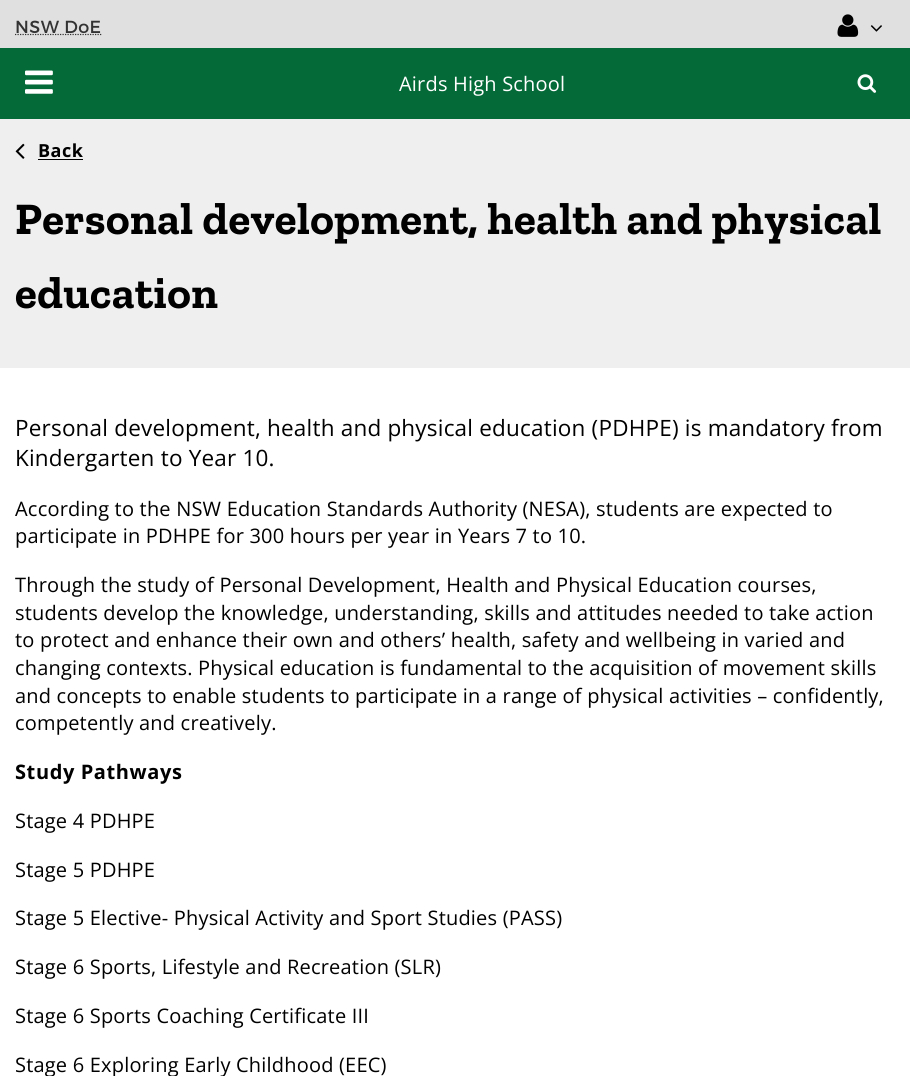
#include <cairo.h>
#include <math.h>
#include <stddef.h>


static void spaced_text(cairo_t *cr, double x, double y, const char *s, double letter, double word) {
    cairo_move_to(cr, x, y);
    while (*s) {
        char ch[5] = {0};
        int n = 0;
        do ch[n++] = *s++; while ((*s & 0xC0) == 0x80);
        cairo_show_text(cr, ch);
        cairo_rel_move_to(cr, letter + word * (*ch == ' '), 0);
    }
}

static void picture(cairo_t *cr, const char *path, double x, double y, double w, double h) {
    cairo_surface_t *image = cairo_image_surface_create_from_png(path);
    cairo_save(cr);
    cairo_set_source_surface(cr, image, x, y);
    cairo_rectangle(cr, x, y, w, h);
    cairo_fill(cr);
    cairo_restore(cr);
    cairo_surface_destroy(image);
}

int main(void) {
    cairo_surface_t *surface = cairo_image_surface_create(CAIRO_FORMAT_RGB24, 910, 1076);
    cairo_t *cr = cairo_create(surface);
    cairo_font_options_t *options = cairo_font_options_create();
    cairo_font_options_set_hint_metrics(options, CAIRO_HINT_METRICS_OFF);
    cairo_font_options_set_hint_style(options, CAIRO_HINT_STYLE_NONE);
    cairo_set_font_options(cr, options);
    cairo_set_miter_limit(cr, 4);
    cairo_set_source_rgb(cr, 1, 1, 1);
    cairo_paint(cr);
    cairo_set_source_rgb(cr, 0.878, 0.878, 0.878);
    cairo_rectangle(cr, 0, 0, 910, 48);
    cairo_fill(cr);
    cairo_new_path(cr);
    cairo_move_to(cr, 15, 34.5);
    cairo_line_to(cr, 101.5, 34.5);
    cairo_set_source_rgb(cr, 0.2, 0.2, 0.2);
    cairo_set_line_width(cr, 1.2);
    cairo_set_dash(cr, (double[]){1.25, 1.25}, 2, 0);
    cairo_stroke(cr);
    cairo_select_font_face(cr, "Montserrat", CAIRO_FONT_SLANT_NORMAL, CAIRO_FONT_WEIGHT_NORMAL);
    cairo_set_font_size(cr, 17.5);
    spaced_text(cr, 15, 33, "NSW DoE", 0.45, 0);
    picture(cr, "img1.png", 837, 14, 22, 23);
    picture(cr, "img2.png", 870, 25, 12, 7);
    cairo_set_source_rgb(cr, 0.016, 0.416, 0.22);
    cairo_rectangle(cr, 0, 48, 910, 71);
    cairo_fill(cr);
    picture(cr, "img3.png", 25, 70, 28, 24);
    cairo_select_font_face(cr, "Open Sans", CAIRO_FONT_SLANT_NORMAL, CAIRO_FONT_WEIGHT_NORMAL);
    cairo_set_font_size(cr, 20);
    cairo_set_source_rgb(cr, 1, 1, 1);
    spaced_text(cr, 399, 91, "Airds High School", 0.2, 0);
    picture(cr, "img4.png", 857, 74, 20, 19);
    cairo_set_source_rgb(cr, 0.937, 0.937, 0.937);
    cairo_rectangle(cr, 0, 119, 910, 249);
    cairo_fill(cr);
    picture(cr, "img5.png", 15, 143, 10, 16);
    cairo_select_font_face(cr, "Open Sans", CAIRO_FONT_SLANT_NORMAL, CAIRO_FONT_WEIGHT_BOLD);
    cairo_set_font_size(cr, 18);
    cairo_set_source_rgb(cr, 0, 0, 0);
    spaced_text(cr, 38, 157, "Back", 0.5, 0);
    cairo_rectangle(cr, 38, 159, 45, 1);
    cairo_fill(cr);
    cairo_select_font_face(cr, "Zilla Slab", CAIRO_FONT_SLANT_NORMAL, CAIRO_FONT_WEIGHT_BOLD);
    cairo_set_font_size(cr, 45);
    spaced_text(cr, 15, 234, "Personal development, health and physical", 0.45, 0);
    spaced_text(cr, 15, 308, "education", 0.45, 0);
    cairo_select_font_face(cr, "Open Sans", CAIRO_FONT_SLANT_NORMAL, CAIRO_FONT_WEIGHT_NORMAL);
    cairo_set_font_size(cr, 22.5);
    spaced_text(cr, 15, 436, "Personal development, health and physical education (PDHPE) is mandatory from", 0.2, 0);
    spaced_text(cr, 15, 466, "Kindergarten to Year 10.", 0.2, 0);
    cairo_set_font_size(cr, 20);
    spaced_text(cr, 15, 516, "According to the NSW Education Standards Authority (NESA), students are expected to", 0.2, 0);
    spaced_text(cr, 15, 543, "participate in PDHPE for 300 hours per year in Years 7 to 10.", 0.2, 0);
    spaced_text(cr, 15, 592, "Through the study of Personal Development, Health and Physical Education courses,", 0.2, 0);
    spaced_text(cr, 15, 620, "students develop the knowledge, understanding, skills and attitudes needed to take action", 0.2, 0);
    spaced_text(cr, 15, 647, "to protect and enhance their own and others’ health, safety and wellbeing in varied and", 0.2, 0);
    spaced_text(cr, 15, 675, "changing contexts. Physical education is fundamental to the acquisition of movement skills", 0.2, 0);
    spaced_text(cr, 15, 703, "and concepts to enable students to participate in a range of physical activities – confidently,", 0.2, 0);
    spaced_text(cr, 15, 730, "competently and creatively.", 0.2, 0);
    cairo_select_font_face(cr, "Open Sans", CAIRO_FONT_SLANT_NORMAL, CAIRO_FONT_WEIGHT_BOLD);
    spaced_text(cr, 15, 779, "Study Pathways", 0.6, 0);
    cairo_select_font_face(cr, "Open Sans", CAIRO_FONT_SLANT_NORMAL, CAIRO_FONT_WEIGHT_NORMAL);
    spaced_text(cr, 15, 828, "Stage 4 PDHPE", 0.2, 0);
    spaced_text(cr, 15, 877, "Stage 5 PDHPE", 0.2, 0);
    spaced_text(cr, 15, 925, "Stage 5 Elective- Physical Activity and Sport Studies (PASS)", 0.2, 0);
    spaced_text(cr, 15, 974, "Stage 6 Sports, Lifestyle and Recreation (SLR)", 0.2, 0);
    spaced_text(cr, 15, 1023, "Stage 6 Sports Coaching Certificate III", 0.2, 0);
    spaced_text(cr, 15, 1072, "Stage 6 Exploring Early Childhood (EEC)", 0.2, 0);
    cairo_surface_write_to_png(surface, "page.png");
    cairo_font_options_destroy(options);
    cairo_destroy(cr);
    cairo_surface_destroy(surface);
    return 0;
}
